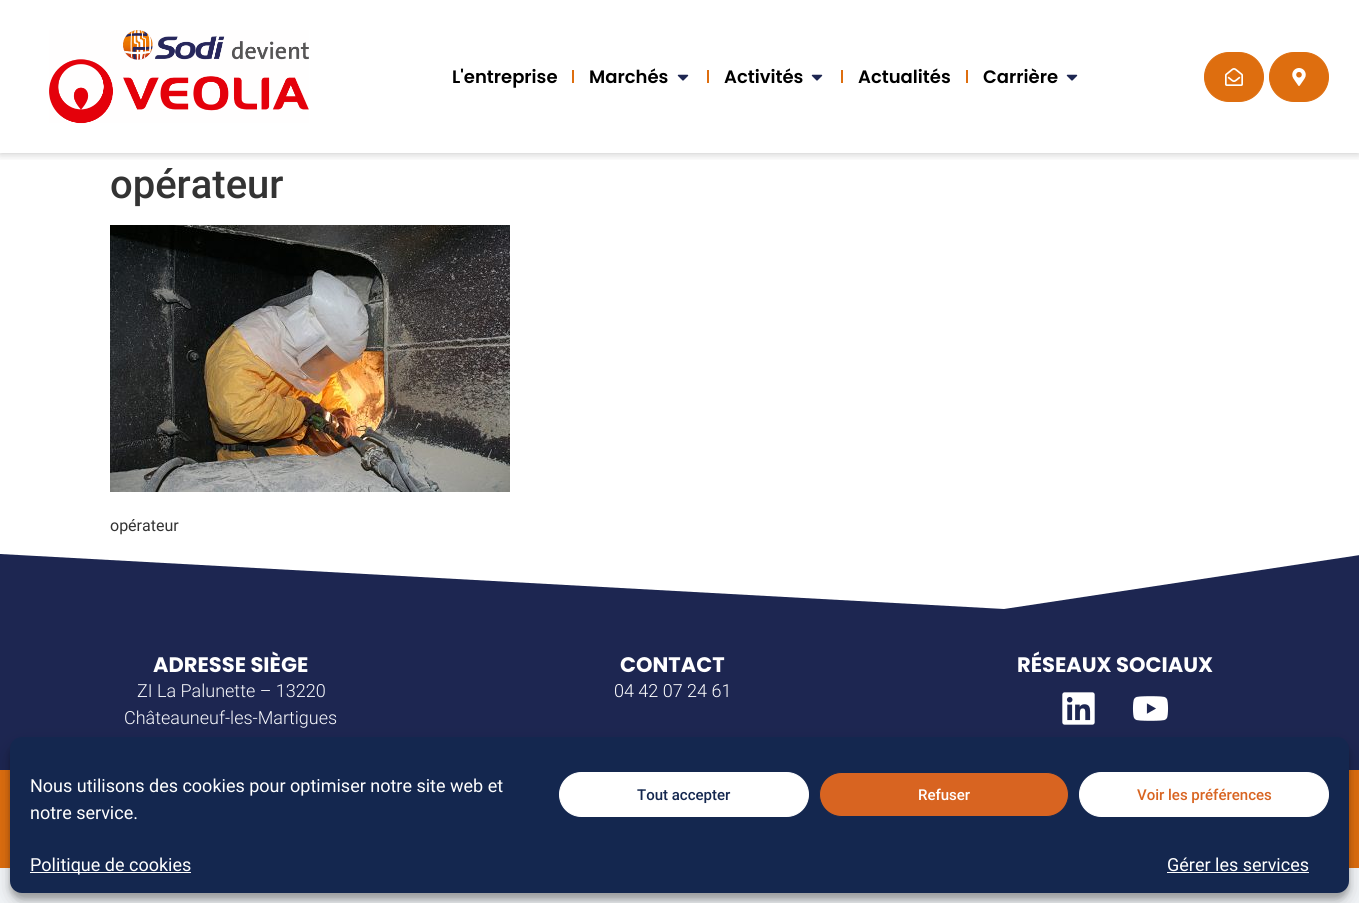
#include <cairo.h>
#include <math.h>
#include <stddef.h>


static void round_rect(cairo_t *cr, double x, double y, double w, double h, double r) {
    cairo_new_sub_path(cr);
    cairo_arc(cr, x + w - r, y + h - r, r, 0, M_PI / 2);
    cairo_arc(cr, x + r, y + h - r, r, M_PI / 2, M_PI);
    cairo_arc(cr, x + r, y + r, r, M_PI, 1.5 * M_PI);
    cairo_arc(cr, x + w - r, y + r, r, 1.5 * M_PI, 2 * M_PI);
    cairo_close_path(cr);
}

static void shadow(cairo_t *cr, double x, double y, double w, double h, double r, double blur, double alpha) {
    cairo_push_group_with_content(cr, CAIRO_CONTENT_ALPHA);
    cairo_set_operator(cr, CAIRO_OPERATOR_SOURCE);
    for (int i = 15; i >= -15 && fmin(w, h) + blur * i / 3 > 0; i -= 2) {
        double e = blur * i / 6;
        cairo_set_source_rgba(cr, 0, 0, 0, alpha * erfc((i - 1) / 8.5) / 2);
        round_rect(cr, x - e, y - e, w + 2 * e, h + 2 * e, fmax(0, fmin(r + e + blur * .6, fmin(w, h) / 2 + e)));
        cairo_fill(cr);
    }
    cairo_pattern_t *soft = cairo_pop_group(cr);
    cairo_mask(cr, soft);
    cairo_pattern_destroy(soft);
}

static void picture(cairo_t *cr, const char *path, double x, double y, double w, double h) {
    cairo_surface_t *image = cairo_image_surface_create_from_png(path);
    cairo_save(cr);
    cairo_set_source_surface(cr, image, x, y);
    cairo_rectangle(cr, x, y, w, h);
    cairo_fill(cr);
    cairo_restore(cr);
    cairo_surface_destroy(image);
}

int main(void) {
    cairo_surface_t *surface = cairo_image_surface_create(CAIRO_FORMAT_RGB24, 1359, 903);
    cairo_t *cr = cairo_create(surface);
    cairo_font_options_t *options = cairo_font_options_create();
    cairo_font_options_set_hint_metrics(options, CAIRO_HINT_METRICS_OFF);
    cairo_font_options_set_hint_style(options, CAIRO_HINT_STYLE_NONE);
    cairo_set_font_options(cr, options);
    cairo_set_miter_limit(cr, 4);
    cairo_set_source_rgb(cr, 1, 1, 1);
    cairo_paint(cr);
    cairo_save(cr);
    cairo_rectangle(cr, 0, 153, 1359, 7);
    cairo_clip(cr);
    cairo_set_source_rgb(cr, 0, 0, 0);
    shadow(cr, 0, 0, 1359, 153, 0, 5, 0.25);
    cairo_restore(cr);
    picture(cr, "img1.png", 49, 30, 260, 94);
    cairo_select_font_face(cr, "Poppins SemiBold", CAIRO_FONT_SLANT_NORMAL, CAIRO_FONT_WEIGHT_NORMAL);
    cairo_set_font_size(cr, 18);
    cairo_set_source_rgb(cr, 0, 0, 0);
    cairo_move_to(cr, 452, 83);
    cairo_show_text(cr, "L'entreprise");
    cairo_set_source_rgb(cr, 0.871, 0.431, 0.059);
    cairo_rectangle(cr, 572, 70, 2, 13);
    cairo_fill(cr);
    cairo_set_source_rgb(cr, 0, 0, 0);
    cairo_move_to(cr, 589, 83);
    cairo_show_text(cr, "Marchés");
    picture(cr, "img2.png", 677, 74, 12, 7);
    cairo_set_source_rgb(cr, 0.871, 0.431, 0.059);
    cairo_rectangle(cr, 707, 70, 2, 13);
    cairo_fill(cr);
    cairo_set_source_rgb(cr, 0, 0, 0);
    cairo_move_to(cr, 724, 83);
    cairo_show_text(cr, "Activités");
    picture(cr, "img2.png", 811, 74, 12, 7);
    cairo_set_source_rgb(cr, 0.871, 0.431, 0.059);
    cairo_rectangle(cr, 841, 70, 2, 13);
    cairo_fill(cr);
    cairo_set_source_rgb(cr, 0, 0, 0);
    cairo_move_to(cr, 858, 83);
    cairo_show_text(cr, "Actualités");
    cairo_set_source_rgb(cr, 0.871, 0.431, 0.059);
    cairo_rectangle(cr, 966, 70, 2, 13);
    cairo_fill(cr);
    cairo_set_source_rgb(cr, 0, 0, 0);
    cairo_move_to(cr, 983, 83);
    cairo_show_text(cr, "Carrière");
    picture(cr, "img2.png", 1066, 74, 12, 7);
    cairo_set_source_rgb(cr, 0.871, 0.431, 0.059);
    round_rect(cr, 1204.5, 52.5, 59, 49, 24.5);
    cairo_fill_preserve(cr);
    cairo_set_line_width(cr, 1);
    cairo_stroke(cr);
    picture(cr, "img3.png", 1225, 68, 18, 18);
    round_rect(cr, 1269.5, 52.5, 59, 49, 24.5);
    cairo_fill_preserve(cr);
    cairo_stroke(cr);
    picture(cr, "img4.png", 1292, 68, 14, 18);
    cairo_select_font_face(cr, "Roboto Medium", CAIRO_FONT_SLANT_NORMAL, CAIRO_FONT_WEIGHT_NORMAL);
    cairo_set_font_size(cr, 40);
    cairo_set_source_rgb(cr, 0.2, 0.2, 0.2);
    cairo_move_to(cr, 110, 198);
    cairo_show_text(cr, "opérateur");
    picture(cr, "img5.png", 110, 225, 400, 267);
    cairo_select_font_face(cr, "Roboto", CAIRO_FONT_SLANT_NORMAL, CAIRO_FONT_WEIGHT_NORMAL);
    cairo_set_font_size(cr, 16);
    cairo_move_to(cr, 110, 531);
    cairo_show_text(cr, "opérateur");
    cairo_set_source_rgb(cr, 0.114, 0.149, 0.318);
    cairo_rectangle(cr, 0, 554, 1359, 216);
    cairo_fill(cr);
    cairo_set_source_rgb(cr, 1, 1, 1);
    cairo_new_path(cr);
    cairo_move_to(cr, 1004, 609);
    cairo_line_to(cr, 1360, 555);
    cairo_line_to(cr, 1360, 551);
    cairo_line_to(cr, 0, 551);
    cairo_line_to(cr, 0, 554);
    cairo_close_path(cr);
    cairo_fill(cr);
    cairo_select_font_face(cr, "Poppins", CAIRO_FONT_SLANT_NORMAL, CAIRO_FONT_WEIGHT_BOLD);
    cairo_set_font_size(cr, 21);
    cairo_move_to(cr, 153, 672);
    cairo_show_text(cr, "ADRESSE SIÈGE");
    cairo_select_font_face(cr, "Roboto Light", CAIRO_FONT_SLANT_NORMAL, CAIRO_FONT_WEIGHT_NORMAL);
    cairo_set_font_size(cr, 18);
    cairo_set_source_rgb(cr, 0.976, 0.98, 0.992);
    cairo_move_to(cr, 137, 697);
    cairo_show_text(cr, "ZI La Palunette – 13220");
    cairo_move_to(cr, 124, 724);
    cairo_show_text(cr, "Châteauneuf-les-Martigues");
    cairo_select_font_face(cr, "Poppins", CAIRO_FONT_SLANT_NORMAL, CAIRO_FONT_WEIGHT_BOLD);
    cairo_set_font_size(cr, 21);
    cairo_set_source_rgb(cr, 1, 1, 1);
    cairo_move_to(cr, 620, 672);
    cairo_show_text(cr, "CONTACT");
    cairo_select_font_face(cr, "Roboto Light", CAIRO_FONT_SLANT_NORMAL, CAIRO_FONT_WEIGHT_NORMAL);
    cairo_set_font_size(cr, 18);
    cairo_move_to(cr, 614, 697);
    cairo_show_text(cr, "04 42 07 24 61");
    cairo_select_font_face(cr, "Poppins", CAIRO_FONT_SLANT_NORMAL, CAIRO_FONT_WEIGHT_BOLD);
    cairo_set_font_size(cr, 21);
    cairo_move_to(cr, 1017, 672);
    cairo_show_text(cr, "RÉSEAUX SOCIAUX");
    picture(cr, "img6.png", 1062, 692, 33, 33);
    picture(cr, "img7.png", 1132, 696, 37, 25);
    cairo_set_source_rgb(cr, 0.871, 0.431, 0.059);
    cairo_rectangle(cr, 0, 770, 1359, 98);
    cairo_fill(cr);
    cairo_set_source_rgb(cr, 0.953, 0.961, 0.973);
    cairo_rectangle(cr, 0, 868, 1359, 35);
    cairo_fill(cr);
    cairo_set_source_rgb(cr, 0, 0, 0);
    shadow(cr, 10, 743, 1339, 156, 12, 3, 0.23);
    shadow(cr, 10, 747, 1339, 156, 12, 10, 0.19);
    cairo_set_source_rgb(cr, 0.082, 0.153, 0.31);
    round_rect(cr, 10, 737, 1339, 156, 12);
    cairo_fill(cr);
    cairo_select_font_face(cr, "Roboto", CAIRO_FONT_SLANT_NORMAL, CAIRO_FONT_WEIGHT_NORMAL);
    cairo_set_font_size(cr, 18);
    cairo_set_source_rgb(cr, 1, 1, 1);
    cairo_move_to(cr, 30, 792);
    cairo_show_text(cr, "Nous utilisons des cookies pour optimiser notre site web et");
    cairo_move_to(cr, 30, 819);
    cairo_show_text(cr, "notre service.");
    round_rect(cr, 559.5, 772.5, 249, 44, 22);
    cairo_fill_preserve(cr);
    cairo_stroke(cr);
    cairo_select_font_face(cr, "Roboto Medium", CAIRO_FONT_SLANT_NORMAL, CAIRO_FONT_WEIGHT_NORMAL);
    cairo_set_font_size(cr, 15);
    cairo_set_source_rgb(cr, 0.082, 0.153, 0.31);
    cairo_move_to(cr, 637, 800);
    cairo_show_text(cr, "Tout accepter");
    cairo_set_source_rgb(cr, 0.847, 0.392, 0.129);
    round_rect(cr, 819.5, 772.5, 249, 44, 22);
    cairo_fill_preserve(cr);
    cairo_set_source_rgb(cr, 0.082, 0.153, 0.31);
    cairo_stroke(cr);
    cairo_set_source_rgb(cr, 1, 1, 1);
    cairo_move_to(cr, 918, 800);
    cairo_show_text(cr, "Refuser");
    round_rect(cr, 1079.5, 772.5, 249, 44, 22);
    cairo_fill_preserve(cr);
    cairo_stroke(cr);
    cairo_set_source_rgb(cr, 0.847, 0.392, 0.129);
    cairo_move_to(cr, 1137, 800);
    cairo_show_text(cr, "Voir les préférences");
    cairo_set_source_rgb(cr, 1, 1, 1);
    cairo_rectangle(cr, 30, 872, 161, 1);
    cairo_fill(cr);
    cairo_select_font_face(cr, "Roboto", CAIRO_FONT_SLANT_NORMAL, CAIRO_FONT_WEIGHT_NORMAL);
    cairo_set_font_size(cr, 18);
    cairo_move_to(cr, 30, 871);
    cairo_show_text(cr, "Politique de cookies");
    cairo_move_to(cr, 1167, 871);
    cairo_show_text(cr, "Gérer les services");
    cairo_rectangle(cr, 1167, 872, 142, 1);
    cairo_fill(cr);
    cairo_surface_write_to_png(surface, "page.png");
    cairo_font_options_destroy(options);
    cairo_destroy(cr);
    cairo_surface_destroy(surface);
    return 0;
}
